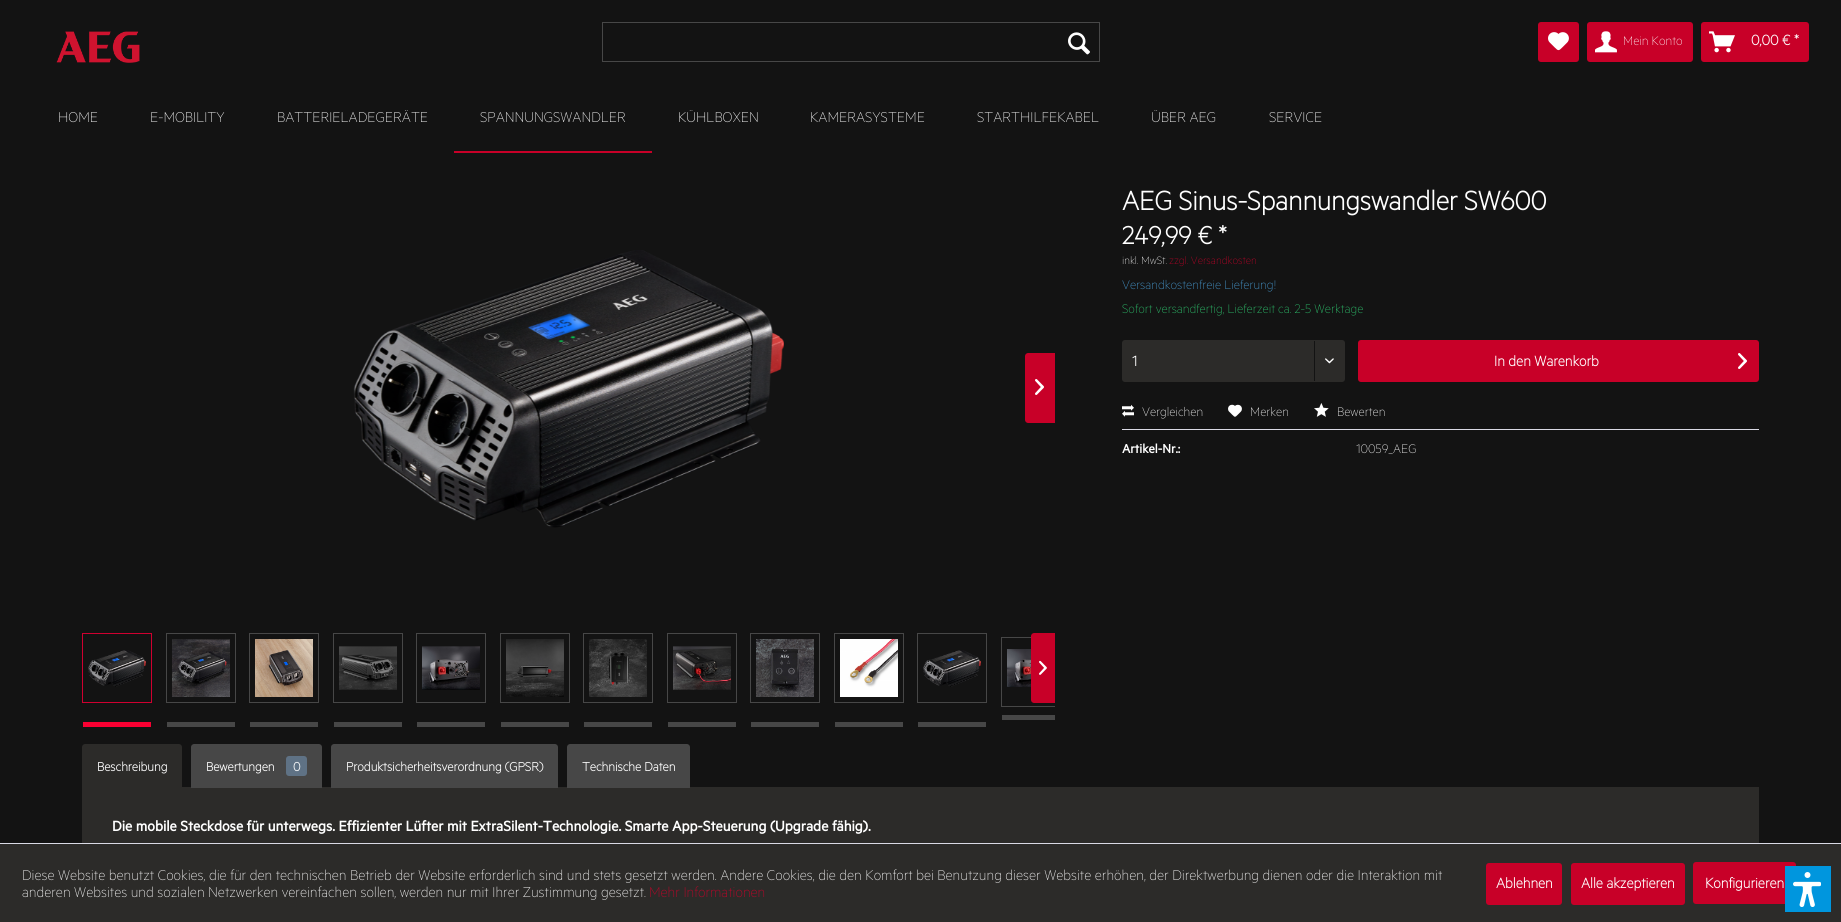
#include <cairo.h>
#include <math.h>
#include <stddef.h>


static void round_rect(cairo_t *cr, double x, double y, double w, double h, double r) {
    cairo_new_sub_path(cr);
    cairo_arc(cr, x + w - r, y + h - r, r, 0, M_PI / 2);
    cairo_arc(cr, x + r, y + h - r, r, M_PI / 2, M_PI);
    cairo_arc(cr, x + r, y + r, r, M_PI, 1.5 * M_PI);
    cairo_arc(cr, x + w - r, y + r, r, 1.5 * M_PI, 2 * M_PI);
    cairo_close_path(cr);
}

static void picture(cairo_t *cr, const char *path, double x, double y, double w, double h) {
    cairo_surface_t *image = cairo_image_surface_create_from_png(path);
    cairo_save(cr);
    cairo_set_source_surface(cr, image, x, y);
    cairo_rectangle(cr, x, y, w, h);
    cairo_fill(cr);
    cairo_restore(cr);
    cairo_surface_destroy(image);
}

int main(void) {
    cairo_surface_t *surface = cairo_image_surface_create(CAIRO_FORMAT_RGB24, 1841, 922);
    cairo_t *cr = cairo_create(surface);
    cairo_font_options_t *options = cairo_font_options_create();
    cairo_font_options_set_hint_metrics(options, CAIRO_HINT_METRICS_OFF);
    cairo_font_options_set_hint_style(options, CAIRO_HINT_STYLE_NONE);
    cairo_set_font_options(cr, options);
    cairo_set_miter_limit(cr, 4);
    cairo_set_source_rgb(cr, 0.078, 0.078, 0.078);
    cairo_paint(cr);
    picture(cr, "img1.png", 56, 31, 84, 32);
    cairo_rectangle(cr, 602.5, 22.5, 497, 39);
    cairo_set_source_rgb(cr, 0.278, 0.278, 0.278);
    cairo_set_line_width(cr, 1);
    cairo_stroke(cr);
    picture(cr, "img2.png", 1068, 32, 22, 23);
    cairo_set_source_rgb(cr, 0.784, 0, 0.157);
    round_rect(cr, 1538, 22, 41, 40, 3);
    cairo_fill(cr);
    picture(cr, "img3.png", 1548, 32, 21, 19);
    round_rect(cr, 1587, 22, 106, 40, 3);
    cairo_fill(cr);
    picture(cr, "img4.png", 1595, 31, 22, 22);
    cairo_select_font_face(cr, "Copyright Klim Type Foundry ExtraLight", CAIRO_FONT_SLANT_NORMAL, CAIRO_FONT_WEIGHT_NORMAL);
    cairo_set_font_size(cr, 14);
    cairo_set_source_rgb(cr, 1, 1, 1);
    cairo_move_to(cr, 1623, 45);
    cairo_show_text(cr, "Mein Konto");
    cairo_set_source_rgb(cr, 0.784, 0, 0.157);
    round_rect(cr, 1701, 22, 108, 40, 3);
    cairo_fill(cr);
    picture(cr, "img5.png", 1709, 31, 26, 22);
    cairo_select_font_face(cr, "Copyright Klim Type Foundry", CAIRO_FONT_SLANT_NORMAL, CAIRO_FONT_WEIGHT_BOLD);
    cairo_set_font_size(cr, 16);
    cairo_set_source_rgb(cr, 1, 1, 1);
    cairo_move_to(cr, 1751, 45);
    cairo_show_text(cr, "0,00 € *");
    cairo_select_font_face(cr, "Copyright Klim Type Foundry ExtraLight", CAIRO_FONT_SLANT_NORMAL, CAIRO_FONT_WEIGHT_NORMAL);
    cairo_move_to(cr, 58, 122);
    cairo_show_text(cr, "HOME");
    cairo_move_to(cr, 150, 122);
    cairo_show_text(cr, "E-MOBILITY");
    cairo_move_to(cr, 277, 122);
    cairo_show_text(cr, "BATTERIELADEGERÄTE");
    cairo_set_source_rgb(cr, 0.784, 0, 0.157);
    cairo_rectangle(cr, 454, 151, 198, 2);
    cairo_fill(cr);
    cairo_set_source_rgb(cr, 1, 1, 1);
    cairo_move_to(cr, 480, 122);
    cairo_show_text(cr, "SPANNUNGSWANDLER");
    cairo_move_to(cr, 678, 122);
    cairo_show_text(cr, "KÜHLBOXEN");
    cairo_move_to(cr, 810, 122);
    cairo_show_text(cr, "KAMERASYSTEME");
    cairo_move_to(cr, 977, 122);
    cairo_show_text(cr, "STARTHILFEKABEL");
    cairo_move_to(cr, 1151, 122);
    cairo_show_text(cr, "ÜBER AEG");
    cairo_move_to(cr, 1269, 122);
    cairo_show_text(cr, "SERVICE");
    cairo_select_font_face(cr, "Copyright Klim Type Foundry", CAIRO_FONT_SLANT_NORMAL, CAIRO_FONT_WEIGHT_BOLD);
    cairo_set_font_size(cr, 30);
    cairo_move_to(cr, 1122, 210);
    cairo_show_text(cr, "AEG Sinus-Spannungswandler SW600");
    picture(cr, "img6.png", 353, 250, 431, 278);
    cairo_set_source_rgb(cr, 0.784, 0, 0.157);
    cairo_new_path(cr);
    cairo_move_to(cr, 1028, 353);
    cairo_line_to(cr, 1055, 353);
    cairo_line_to(cr, 1055, 423);
    cairo_line_to(cr, 1028, 423);
    cairo_curve_to(cr, 1026.5, 423, 1025, 421.5, 1025, 420);
    cairo_line_to(cr, 1025, 356);
    cairo_curve_to(cr, 1025, 354.5, 1026.5, 353, 1028, 353);
    cairo_close_path(cr);
    cairo_fill(cr);
    picture(cr, "img7.png", 1035, 379, 9, 16);
    cairo_rectangle(cr, 82.5, 633.5, 69, 69);
    cairo_set_source_rgb(cr, 0.816, 0, 0.188);
    cairo_stroke(cr);
    picture(cr, "img8.png", 88, 650, 58, 37);
    cairo_set_source_rgb(cr, 0.98, 0, 0.196);
    cairo_rectangle(cr, 83, 722, 68, 5);
    cairo_fill(cr);
    cairo_rectangle(cr, 166.5, 633.5, 69, 69);
    cairo_set_source_rgb(cr, 0.278, 0.278, 0.278);
    cairo_stroke(cr);
    picture(cr, "img9.png", 172, 639, 58, 58);
    cairo_rectangle(cr, 167, 722, 68, 5);
    cairo_fill(cr);
    cairo_rectangle(cr, 249.5, 633.5, 69, 69);
    cairo_stroke(cr);
    picture(cr, "img10.png", 255, 639, 58, 58);
    cairo_rectangle(cr, 250, 722, 68, 5);
    cairo_fill(cr);
    cairo_rectangle(cr, 333.5, 633.5, 69, 69);
    cairo_stroke(cr);
    picture(cr, "img11.png", 339, 646, 58, 44);
    cairo_rectangle(cr, 334, 722, 68, 5);
    cairo_fill(cr);
    cairo_rectangle(cr, 416.5, 633.5, 69, 69);
    cairo_stroke(cr);
    picture(cr, "img12.png", 422, 646, 58, 44);
    cairo_rectangle(cr, 417, 722, 68, 5);
    cairo_fill(cr);
    cairo_rectangle(cr, 500.5, 633.5, 69, 69);
    cairo_stroke(cr);
    picture(cr, "img13.png", 506, 639, 58, 58);
    cairo_rectangle(cr, 501, 722, 68, 5);
    cairo_fill(cr);
    cairo_rectangle(cr, 583.5, 633.5, 69, 69);
    cairo_stroke(cr);
    picture(cr, "img14.png", 589, 639, 58, 58);
    cairo_rectangle(cr, 584, 722, 68, 5);
    cairo_fill(cr);
    cairo_rectangle(cr, 667.5, 633.5, 69, 69);
    cairo_stroke(cr);
    picture(cr, "img15.png", 673, 646, 58, 44);
    cairo_rectangle(cr, 668, 722, 68, 5);
    cairo_fill(cr);
    cairo_rectangle(cr, 750.5, 633.5, 69, 69);
    cairo_stroke(cr);
    picture(cr, "img16.png", 756, 639, 58, 58);
    cairo_rectangle(cr, 751, 722, 68, 5);
    cairo_fill(cr);
    cairo_rectangle(cr, 834.5, 633.5, 69, 69);
    cairo_stroke(cr);
    picture(cr, "img17.png", 840, 639, 58, 58);
    cairo_rectangle(cr, 835, 722, 68, 5);
    cairo_fill(cr);
    cairo_rectangle(cr, 917.5, 633.5, 69, 69);
    cairo_stroke(cr);
    picture(cr, "img18.png", 923, 650, 58, 37);
    cairo_rectangle(cr, 918, 722, 68, 5);
    cairo_fill(cr);
    cairo_save(cr);
    cairo_rectangle(cr, 82, 0, 973, 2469);
    cairo_clip(cr);
    cairo_rectangle(cr, 1001.5, 637.5, 69, 69);
    cairo_stroke(cr);
    cairo_restore(cr);
    picture(cr, "img19.png", 1007, 649, 24, 38);
    cairo_rectangle(cr, 1002, 715, 53, 5);
    cairo_fill(cr);
    cairo_set_source_rgb(cr, 0.784, 0, 0.157);
    cairo_new_path(cr);
    cairo_move_to(cr, 1034, 633);
    cairo_line_to(cr, 1055, 633);
    cairo_line_to(cr, 1055, 703);
    cairo_line_to(cr, 1034, 703);
    cairo_curve_to(cr, 1032.5, 703, 1031, 701.5, 1031, 700);
    cairo_line_to(cr, 1031, 636);
    cairo_curve_to(cr, 1031, 634.5, 1032.5, 633, 1034, 633);
    cairo_close_path(cr);
    cairo_fill(cr);
    picture(cr, "img20.png", 1039, 660, 8, 15);
    cairo_set_font_size(cr, 28);
    cairo_set_source_rgb(cr, 1, 1, 1);
    cairo_move_to(cr, 1122, 244);
    cairo_show_text(cr, "249,99 € *");
    cairo_select_font_face(cr, "Copyright Klim Type Foundry ExtraLight", CAIRO_FONT_SLANT_NORMAL, CAIRO_FONT_WEIGHT_NORMAL);
    cairo_set_font_size(cr, 12);
    cairo_move_to(cr, 1122, 264);
    cairo_show_text(cr, "inkl. MwSt.");
    cairo_set_source_rgb(cr, 0.784, 0, 0.157);
    cairo_move_to(cr, 1169, 264);
    cairo_show_text(cr, "zzgl. Versandkosten");
    cairo_set_font_size(cr, 14);
    cairo_set_source_rgb(cr, 0.29, 0.639, 0.875);
    cairo_move_to(cr, 1122, 289);
    cairo_show_text(cr, "Versandkostenfreie Lieferung!");
    cairo_set_source_rgb(cr, 0.18, 0.8, 0.443);
    cairo_move_to(cr, 1122, 313);
    cairo_show_text(cr, "Sofort versandfertig, Lieferzeit ca. 2-5 Werktage");
    cairo_set_source_rgb(cr, 0.173, 0.169, 0.161);
    round_rect(cr, 1122, 340, 223, 42, 3);
    cairo_fill(cr);
    cairo_select_font_face(cr, "Copyright Klim Type Foundry", CAIRO_FONT_SLANT_NORMAL, CAIRO_FONT_WEIGHT_BOLD);
    cairo_set_font_size(cr, 16);
    cairo_set_source_rgb(cr, 1, 1, 1);
    cairo_move_to(cr, 1132, 366);
    cairo_show_text(cr, "1");
    cairo_set_source_rgb(cr, 0.078, 0.078, 0.078);
    cairo_rectangle(cr, 1314, 341, 1, 40);
    cairo_fill(cr);
    picture(cr, "img21.png", 1325, 358, 9, 6);
    cairo_set_source_rgb(cr, 0.784, 0, 0.157);
    round_rect(cr, 1358, 340, 401, 42, 3);
    cairo_fill(cr);
    cairo_set_source_rgb(cr, 1, 1, 1);
    cairo_move_to(cr, 1494, 366);
    cairo_show_text(cr, "In den Warenkorb");
    picture(cr, "img7.png", 1738, 353, 9, 16);
    cairo_set_source_rgb(cr, 0.855, 0.855, 0.898);
    cairo_rectangle(cr, 1122, 429, 637, 1);
    cairo_fill(cr);
    picture(cr, "img22.png", 1122, 404, 12, 13);
    cairo_select_font_face(cr, "Copyright Klim Type Foundry ExtraLight", CAIRO_FONT_SLANT_NORMAL, CAIRO_FONT_WEIGHT_NORMAL);
    cairo_set_font_size(cr, 14);
    cairo_set_source_rgb(cr, 1, 1, 1);
    cairo_move_to(cr, 1142, 416);
    cairo_show_text(cr, "Vergleichen");
    picture(cr, "img23.png", 1228, 404, 14, 13);
    cairo_move_to(cr, 1250, 416);
    cairo_show_text(cr, "Merken");
    picture(cr, "img24.png", 1314, 403, 15, 14);
    cairo_move_to(cr, 1337, 416);
    cairo_show_text(cr, "Bewerten");
    cairo_select_font_face(cr, "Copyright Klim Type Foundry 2", CAIRO_FONT_SLANT_NORMAL, CAIRO_FONT_WEIGHT_BOLD);
    cairo_move_to(cr, 1122, 453);
    cairo_show_text(cr, "Artikel-Nr.:");
    cairo_select_font_face(cr, "Copyright Klim Type Foundry ExtraLight", CAIRO_FONT_SLANT_NORMAL, CAIRO_FONT_WEIGHT_NORMAL);
    cairo_move_to(cr, 1356, 453);
    cairo_show_text(cr, "10059_AEG");
    cairo_set_source_rgb(cr, 0.173, 0.169, 0.161);
    cairo_rectangle(cr, 82, 787, 1677, 56);
    cairo_fill(cr);
    cairo_new_path(cr);
    cairo_move_to(cr, 85, 744);
    cairo_line_to(cr, 179, 744);
    cairo_curve_to(cr, 180.5, 744, 182, 745.5, 182, 747);
    cairo_line_to(cr, 182, 788);
    cairo_line_to(cr, 82, 788);
    cairo_line_to(cr, 82, 747);
    cairo_curve_to(cr, 82, 745.5, 83.5, 744, 85, 744);
    cairo_close_path(cr);
    cairo_fill(cr);
    cairo_select_font_face(cr, "Copyright Klim Type Foundry", CAIRO_FONT_SLANT_NORMAL, CAIRO_FONT_WEIGHT_BOLD);
    cairo_set_source_rgb(cr, 1, 1, 1);
    cairo_move_to(cr, 97, 771);
    cairo_show_text(cr, "Beschreibung");
    cairo_set_source_rgb(cr, 0.278, 0.278, 0.278);
    cairo_new_path(cr);
    cairo_move_to(cr, 194, 744);
    cairo_line_to(cr, 319, 744);
    cairo_curve_to(cr, 320.5, 744, 322, 745.5, 322, 747);
    cairo_line_to(cr, 322, 788);
    cairo_line_to(cr, 191, 788);
    cairo_line_to(cr, 191, 747);
    cairo_curve_to(cr, 191, 745.5, 192.5, 744, 194, 744);
    cairo_close_path(cr);
    cairo_fill(cr);
    cairo_set_source_rgb(cr, 1, 1, 1);
    cairo_move_to(cr, 206, 771);
    cairo_show_text(cr, "Bewertungen");
    cairo_set_source_rgb(cr, 0.373, 0.447, 0.522);
    round_rect(cr, 286, 756, 21, 20, 3);
    cairo_fill(cr);
    cairo_set_source_rgb(cr, 1, 1, 1);
    cairo_move_to(cr, 293, 771);
    cairo_show_text(cr, "0");
    cairo_set_source_rgb(cr, 0.278, 0.278, 0.278);
    cairo_new_path(cr);
    cairo_move_to(cr, 334, 744);
    cairo_line_to(cr, 555, 744);
    cairo_curve_to(cr, 556.5, 744, 558, 745.5, 558, 747);
    cairo_line_to(cr, 558, 788);
    cairo_line_to(cr, 331, 788);
    cairo_line_to(cr, 331, 747);
    cairo_curve_to(cr, 331, 745.5, 332.5, 744, 334, 744);
    cairo_close_path(cr);
    cairo_fill(cr);
    cairo_set_source_rgb(cr, 1, 1, 1);
    cairo_move_to(cr, 346, 771);
    cairo_show_text(cr, "Produktsicherheitsverordnung (GPSR)");
    cairo_set_source_rgb(cr, 0.278, 0.278, 0.278);
    cairo_new_path(cr);
    cairo_move_to(cr, 570, 744);
    cairo_line_to(cr, 687, 744);
    cairo_curve_to(cr, 688.5, 744, 690, 745.5, 690, 747);
    cairo_line_to(cr, 690, 788);
    cairo_line_to(cr, 567, 788);
    cairo_line_to(cr, 567, 747);
    cairo_curve_to(cr, 567, 745.5, 568.5, 744, 570, 744);
    cairo_close_path(cr);
    cairo_fill(cr);
    cairo_set_source_rgb(cr, 1, 1, 1);
    cairo_move_to(cr, 582, 771);
    cairo_show_text(cr, "Technische Daten");
    cairo_select_font_face(cr, "Copyright Klim Type Foundry 2", CAIRO_FONT_SLANT_NORMAL, CAIRO_FONT_WEIGHT_BOLD);
    cairo_set_font_size(cr, 16);
    cairo_move_to(cr, 112, 831);
    cairo_show_text(cr, "Die mobile Steckdose für unterwegs. Effizienter Lüfter mit ExtraSilent-Technologie. Smarte App-Steuerung (Upgrade fähig).");
    cairo_set_source_rgb(cr, 0.173, 0.169, 0.161);
    cairo_rectangle(cr, 0, 844, 1841, 78);
    cairo_fill(cr);
    cairo_set_source_rgb(cr, 0.855, 0.855, 0.898);
    cairo_rectangle(cr, 0, 843, 1841, 1);
    cairo_fill(cr);
    cairo_select_font_face(cr, "Copyright Klim Type Foundry ExtraLight", CAIRO_FONT_SLANT_NORMAL, CAIRO_FONT_WEIGHT_NORMAL);
    cairo_set_source_rgb(cr, 1, 1, 1);
    cairo_move_to(cr, 22, 880);
    cairo_show_text(cr, "Diese Website benutzt Cookies, die für den technischen Betrieb der Website erforderlich sind und stets gesetzt werden. Andere Cookies, die den Komfort bei Benutzung dieser Website erhöhen, der Direktwerbung dienen oder die Interaktion mit");
    cairo_move_to(cr, 22, 897);
    cairo_show_text(cr, "anderen Websites und sozialen Netzwerken vereinfachen sollen, werden nur mit Ihrer Zustimmung gesetzt.");
    cairo_set_source_rgb(cr, 0.784, 0, 0.157);
    cairo_move_to(cr, 649, 897);
    cairo_show_text(cr, "Mehr Informationen");
    round_rect(cr, 1486, 863, 76, 42, 3);
    cairo_fill(cr);
    cairo_select_font_face(cr, "Copyright Klim Type Foundry", CAIRO_FONT_SLANT_NORMAL, CAIRO_FONT_WEIGHT_BOLD);
    cairo_set_source_rgb(cr, 1, 1, 1);
    cairo_move_to(cr, 1496, 888);
    cairo_show_text(cr, "Ablehnen");
    cairo_set_source_rgb(cr, 0.784, 0, 0.157);
    round_rect(cr, 1571, 863, 114, 42, 3);
    cairo_fill(cr);
    cairo_set_source_rgb(cr, 1, 1, 1);
    cairo_move_to(cr, 1581, 888);
    cairo_show_text(cr, "Alle akzeptieren");
    cairo_set_source_rgb(cr, 0.784, 0, 0.157);
    round_rect(cr, 1693, 862, 103, 42, 3);
    cairo_fill(cr);
    cairo_set_source_rgb(cr, 1, 1, 1);
    cairo_move_to(cr, 1705, 888);
    cairo_show_text(cr, "Konfigurieren");
    cairo_set_source_rgb(cr, 0, 0.588, 0.871);
    cairo_rectangle(cr, 1785, 866, 46, 46);
    cairo_fill(cr);
    picture(cr, "img25.png", 1793, 872, 28, 35);
    cairo_surface_write_to_png(surface, "page.png");
    cairo_font_options_destroy(options);
    cairo_destroy(cr);
    cairo_surface_destroy(surface);
    return 0;
}
